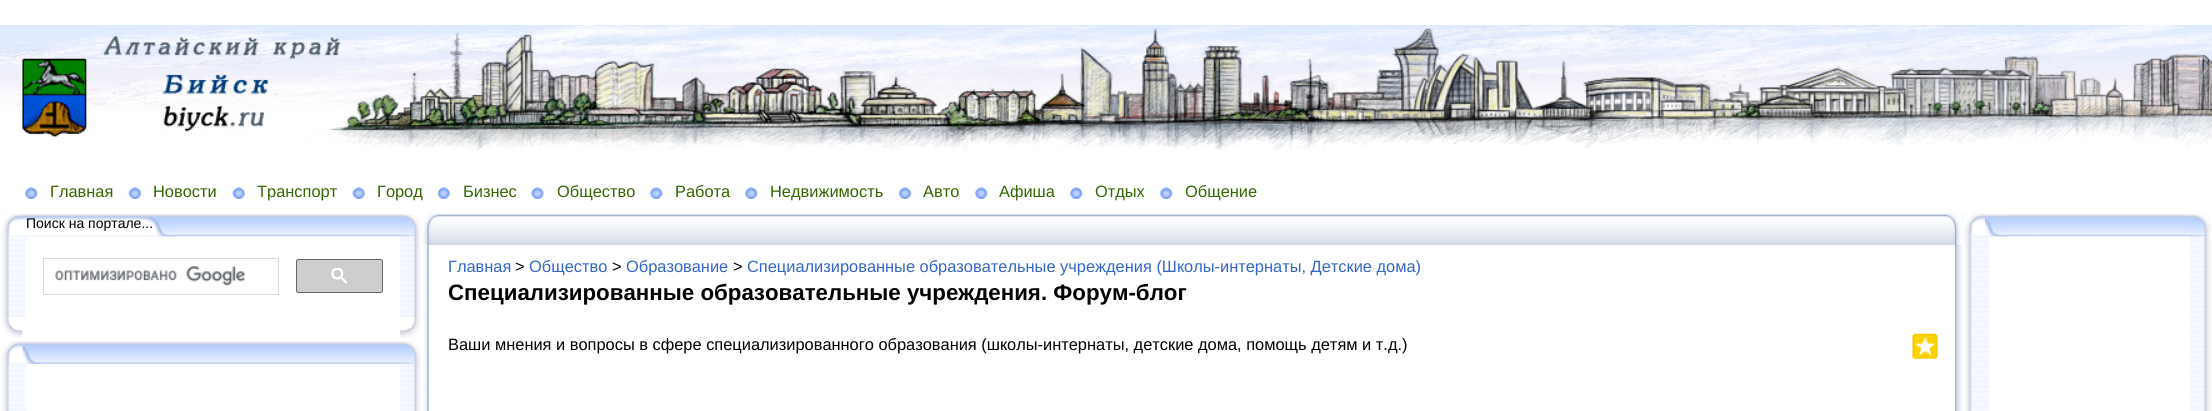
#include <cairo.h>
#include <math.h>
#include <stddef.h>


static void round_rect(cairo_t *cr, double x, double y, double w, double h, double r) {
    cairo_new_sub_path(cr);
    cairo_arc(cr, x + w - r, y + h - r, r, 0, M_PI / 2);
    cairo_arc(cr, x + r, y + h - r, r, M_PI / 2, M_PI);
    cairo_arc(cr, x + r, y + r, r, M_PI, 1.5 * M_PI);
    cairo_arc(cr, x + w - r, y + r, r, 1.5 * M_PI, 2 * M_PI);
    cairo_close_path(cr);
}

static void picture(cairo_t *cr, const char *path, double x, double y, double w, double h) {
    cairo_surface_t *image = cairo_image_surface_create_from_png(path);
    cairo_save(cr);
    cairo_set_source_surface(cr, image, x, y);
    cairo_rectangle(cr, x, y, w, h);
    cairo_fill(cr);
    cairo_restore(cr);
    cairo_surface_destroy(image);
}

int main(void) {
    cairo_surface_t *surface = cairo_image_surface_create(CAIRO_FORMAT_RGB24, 2212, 411);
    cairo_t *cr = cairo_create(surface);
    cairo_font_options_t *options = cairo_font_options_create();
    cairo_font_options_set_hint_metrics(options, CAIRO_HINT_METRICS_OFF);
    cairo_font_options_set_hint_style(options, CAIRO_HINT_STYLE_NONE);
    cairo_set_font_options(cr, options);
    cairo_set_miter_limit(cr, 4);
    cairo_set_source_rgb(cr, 1, 1, 1);
    cairo_paint(cr);
    picture(cr, "img1.png", 0, 25, 2212, 125);
    picture(cr, "img2.png", 25, 187, 13, 12);
    cairo_select_font_face(cr, "Liberation Sans", CAIRO_FONT_SLANT_NORMAL, CAIRO_FONT_WEIGHT_NORMAL);
    cairo_set_font_size(cr, 16.4);
    cairo_set_source_rgb(cr, 0.2, 0.4, 0);
    cairo_move_to(cr, 50, 197);
    cairo_show_text(cr, "Главная");
    picture(cr, "img3.png", 128, 187, 14, 12);
    cairo_move_to(cr, 153, 197);
    cairo_show_text(cr, "Новости");
    picture(cr, "img4.png", 232, 187, 13, 12);
    cairo_move_to(cr, 257, 197);
    cairo_show_text(cr, "Транспорт");
    picture(cr, "img5.png", 352, 187, 13, 12);
    cairo_move_to(cr, 377, 197);
    cairo_show_text(cr, "Город");
    picture(cr, "img4.png", 437, 187, 13, 12);
    cairo_move_to(cr, 463, 197);
    cairo_show_text(cr, "Бизнес");
    picture(cr, "img6.png", 531, 187, 13, 12);
    cairo_move_to(cr, 557, 197);
    cairo_show_text(cr, "Общество");
    picture(cr, "img7.png", 650, 187, 13, 12);
    cairo_move_to(cr, 675, 197);
    cairo_show_text(cr, "Работа");
    picture(cr, "img2.png", 745, 187, 13, 12);
    cairo_move_to(cr, 770, 197);
    cairo_show_text(cr, "Недвижимость");
    picture(cr, "img3.png", 898, 187, 14, 12);
    cairo_move_to(cr, 923, 197);
    cairo_show_text(cr, "Авто");
    picture(cr, "img2.png", 975, 187, 13, 12);
    cairo_move_to(cr, 999, 197);
    cairo_show_text(cr, "Афиша");
    picture(cr, "img7.png", 1070, 187, 13, 12);
    cairo_move_to(cr, 1095, 197);
    cairo_show_text(cr, "Отдых");
    picture(cr, "img2.png", 1160, 187, 13, 12);
    cairo_move_to(cr, 1185, 197);
    cairo_show_text(cr, "Общение");
    picture(cr, "img8.png", 0, 213, 400, 24);
    picture(cr, "img9.png", 0, 216, 176, 21);
    picture(cr, "img10.png", 0, 214, 19, 22);
    cairo_set_font_size(cr, 14);
    cairo_set_source_rgb(cr, 0, 0, 0);
    cairo_move_to(cr, 26, 228);
    cairo_show_text(cr, "Поиск на портале...");
    picture(cr, "img15.png", 400, 236, 21, 82);
    picture(cr, "img30.png", 422, 213, 1541, 32);
    picture(cr, "img11.png", 400, 214, 23, 23);
    picture(cr, "img12.png", 0, 236, 27, 82);
    cairo_set_source_rgb(cr, 1, 1, 1);
    cairo_rectangle(cr, 25, 240, 2, 78);
    cairo_fill(cr);
    cairo_rectangle(cr, 43.5, 258.5, 235, 36);
    cairo_set_source_rgb(cr, 0.851, 0.851, 0.851);
    cairo_set_line_width(cr, 1);
    cairo_stroke(cr);
    picture(cr, "img13.png", 55, 266, 190, 19);
    cairo_set_source_rgb(cr, 0.808, 0.808, 0.808);
    round_rect(cr, 296.5, 259.5, 86, 33, 2);
    cairo_fill_preserve(cr);
    cairo_set_source_rgb(cr, 0.4, 0.4, 0.4);
    cairo_stroke(cr);
    picture(cr, "img14.png", 331, 268, 17, 16);
    picture(cr, "img16.png", 2, 317, 21, 21);
    picture(cr, "img17.png", 400, 317, 21, 21);
    picture(cr, "img18.png", 0, 341, 400, 23);
    picture(cr, "img19.png", 0, 344, 45, 20);
    picture(cr, "img22.png", 0, 363, 27, 48);
    picture(cr, "img20.png", 0, 341, 23, 23);
    picture(cr, "img23.png", 400, 363, 21, 48);
    picture(cr, "img21.png", 400, 341, 21, 23);
    picture(cr, "img31.png", 1942, 213, 21, 32);
    picture(cr, "img24.png", 1962, 213, 228, 24);
    picture(cr, "img25.png", 1962, 215, 46, 22);
    picture(cr, "img26.png", 1962, 214, 23, 22);
    picture(cr, "img29.png", 2190, 236, 21, 175);
    picture(cr, "img27.png", 2190, 214, 21, 23);
    picture(cr, "img34.png", 1954, 245, 9, 166);
    picture(cr, "img28.png", 1962, 236, 27, 175);
    picture(cr, "img32.png", 422, 213, 20, 32);
    picture(cr, "img33.png", 423, 245, 6, 166);
    cairo_set_font_size(cr, 16.4);
    cairo_set_source_rgb(cr, 0.2, 0.4, 0.8);
    cairo_move_to(cr, 448, 272);
    cairo_show_text(cr, "Главная");
    cairo_set_source_rgb(cr, 0, 0, 0);
    cairo_move_to(cr, 515, 272);
    cairo_show_text(cr, ">");
    cairo_set_source_rgb(cr, 0.2, 0.4, 0.8);
    cairo_move_to(cr, 529, 272);
    cairo_show_text(cr, "Общество");
    cairo_set_source_rgb(cr, 0, 0, 0);
    cairo_move_to(cr, 612, 272);
    cairo_show_text(cr, ">");
    cairo_set_source_rgb(cr, 0.2, 0.4, 0.8);
    cairo_move_to(cr, 626, 272);
    cairo_show_text(cr, "Образование");
    cairo_set_source_rgb(cr, 0, 0, 0);
    cairo_move_to(cr, 733, 272);
    cairo_show_text(cr, ">");
    cairo_set_source_rgb(cr, 0.2, 0.4, 0.8);
    cairo_move_to(cr, 747, 272);
    cairo_show_text(cr, "Специализированные образовательные учреждения (Школы-интернаты, Детские дома)");
    cairo_select_font_face(cr, "Liberation Sans", CAIRO_FONT_SLANT_NORMAL, CAIRO_FONT_WEIGHT_BOLD);
    cairo_set_font_size(cr, 22.3);
    cairo_set_source_rgb(cr, 0, 0, 0);
    cairo_move_to(cr, 448, 300);
    cairo_show_text(cr, "Специализированные образовательные учреждения. Форум-блог");
    cairo_select_font_face(cr, "Liberation Sans", CAIRO_FONT_SLANT_NORMAL, CAIRO_FONT_WEIGHT_NORMAL);
    cairo_set_font_size(cr, 16.4);
    cairo_move_to(cr, 448, 350);
    cairo_show_text(cr, "Ваши мнения и вопросы в сфере специализированного образования (школы-интернаты, детские дома, помощь детям и т.д.)");
    picture(cr, "img35.png", 1912, 333, 26, 26);
    cairo_surface_write_to_png(surface, "page.png");
    cairo_font_options_destroy(options);
    cairo_destroy(cr);
    cairo_surface_destroy(surface);
    return 0;
}
